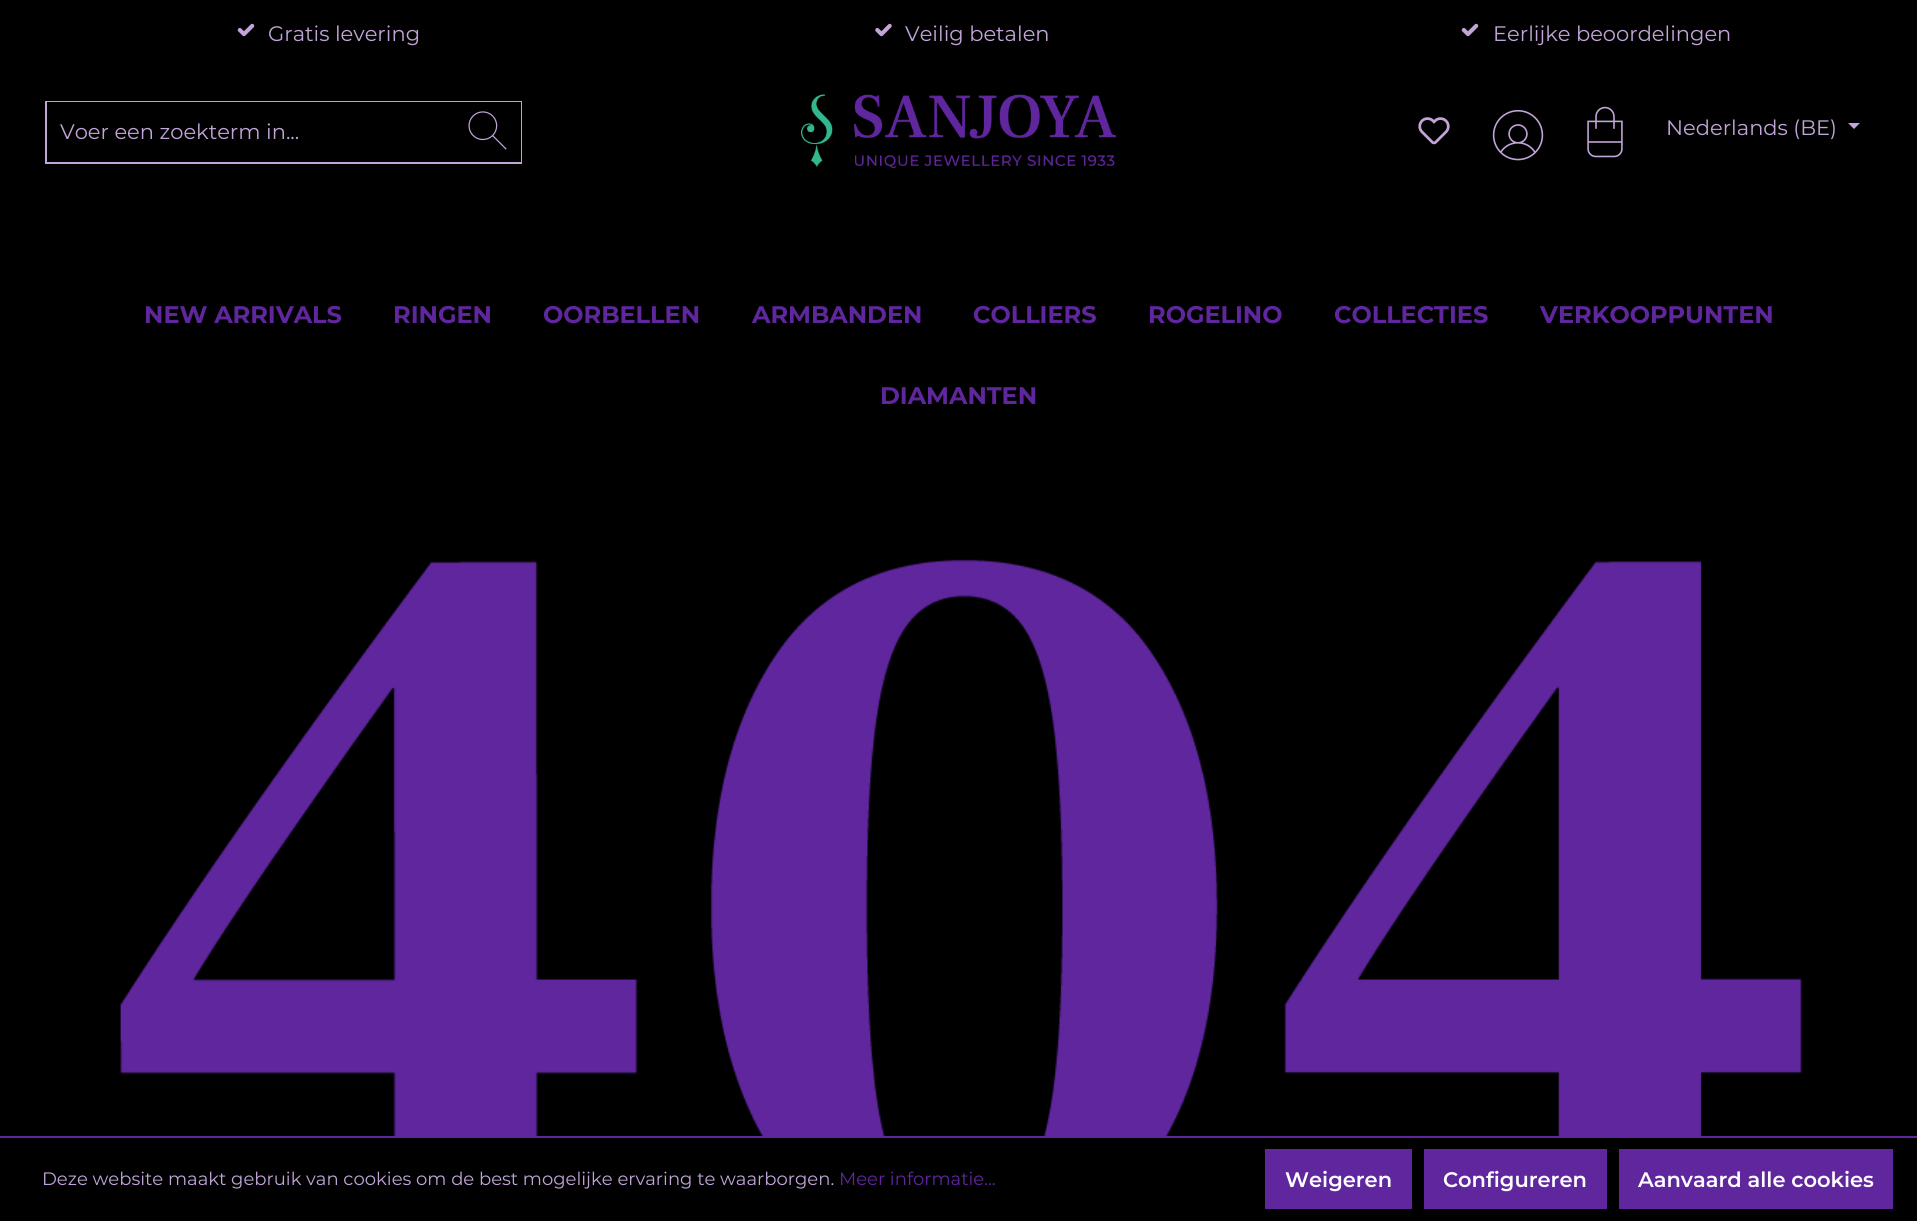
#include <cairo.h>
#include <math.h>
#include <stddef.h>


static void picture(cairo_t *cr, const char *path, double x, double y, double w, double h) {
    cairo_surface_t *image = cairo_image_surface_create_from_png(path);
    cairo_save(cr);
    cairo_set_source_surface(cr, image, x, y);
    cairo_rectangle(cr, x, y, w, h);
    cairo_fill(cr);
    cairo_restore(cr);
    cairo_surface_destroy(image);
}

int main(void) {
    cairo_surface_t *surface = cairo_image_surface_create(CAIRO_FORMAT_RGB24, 1917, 1221);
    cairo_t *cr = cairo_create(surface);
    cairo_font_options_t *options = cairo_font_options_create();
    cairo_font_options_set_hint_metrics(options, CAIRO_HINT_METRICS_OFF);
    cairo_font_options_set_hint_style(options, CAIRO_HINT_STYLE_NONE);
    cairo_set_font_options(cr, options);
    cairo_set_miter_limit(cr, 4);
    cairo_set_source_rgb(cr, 0, 0, 0);
    cairo_paint(cr);
    picture(cr, "img1.png", 237, 23, 18, 14);
    cairo_select_font_face(cr, "Montserrat", CAIRO_FONT_SLANT_NORMAL, CAIRO_FONT_WEIGHT_NORMAL);
    cairo_set_font_size(cr, 21);
    cairo_set_source_rgb(cr, 0.757, 0.647, 0.847);
    cairo_move_to(cr, 268, 41);
    cairo_show_text(cr, "Gratis levering");
    picture(cr, "img2.png", 875, 23, 17, 14);
    cairo_move_to(cr, 905, 41);
    cairo_show_text(cr, "Veilig betalen");
    picture(cr, "img1.png", 1461, 23, 18, 14);
    cairo_move_to(cr, 1493, 41);
    cairo_show_text(cr, "Eerlijke beoordelingen");
    cairo_rectangle(cr, 46, 102, 475, 61);
    cairo_stroke(cr);
    cairo_set_source_rgb(cr, 0, 0, 0);
    cairo_rectangle(cr, 47, 102, 474, 60);
    cairo_fill(cr);
    cairo_set_source_rgb(cr, 0.757, 0.647, 0.847);
    cairo_move_to(cr, 60, 139);
    cairo_show_text(cr, "Voer een zoekterm in...");
    picture(cr, "img3.png", 468, 111, 39, 39);
    picture(cr, "img4.png", 801, 94, 315, 74);
    picture(cr, "img5.png", 1418, 117, 32, 28);
    picture(cr, "img6.png", 1492, 110, 52, 51);
    picture(cr, "img7.png", 1587, 106, 36, 52);
    cairo_move_to(cr, 1666, 135);
    cairo_show_text(cr, "Nederlands (BE)");
    cairo_new_path(cr);
    cairo_move_to(cr, 1848, 123);
    cairo_line_to(cr, 1860, 123);
    cairo_line_to(cr, 1854, 129);
    cairo_close_path(cr);
    cairo_fill(cr);
    cairo_select_font_face(cr, "Montserrat", CAIRO_FONT_SLANT_NORMAL, CAIRO_FONT_WEIGHT_BOLD);
    cairo_set_font_size(cr, 24);
    cairo_set_source_rgb(cr, 0.376, 0.149, 0.62);
    cairo_move_to(cr, 144, 323);
    cairo_show_text(cr, "NEW ARRIVALS");
    cairo_move_to(cr, 393, 323);
    cairo_show_text(cr, "RINGEN");
    cairo_move_to(cr, 543, 323);
    cairo_show_text(cr, "OORBELLEN");
    cairo_move_to(cr, 752, 323);
    cairo_show_text(cr, "ARMBANDEN");
    cairo_move_to(cr, 973, 323);
    cairo_show_text(cr, "COLLIERS");
    cairo_move_to(cr, 1148, 323);
    cairo_show_text(cr, "ROGELINO");
    cairo_move_to(cr, 1334, 323);
    cairo_show_text(cr, "COLLECTIES");
    cairo_move_to(cr, 1540, 323);
    cairo_show_text(cr, "VERKOOPPUNTEN");
    cairo_move_to(cr, 880, 404);
    cairo_show_text(cr, "DIAMANTEN");
    picture(cr, "img8.png", 120, 559, 1683, 577);
    cairo_rectangle(cr, 0, 1136, 1917, 2);
    cairo_fill(cr);
    cairo_select_font_face(cr, "Montserrat", CAIRO_FONT_SLANT_NORMAL, CAIRO_FONT_WEIGHT_NORMAL);
    cairo_set_font_size(cr, 18);
    cairo_set_source_rgb(cr, 0.757, 0.647, 0.847);
    cairo_move_to(cr, 42, 1185);
    cairo_show_text(cr, "Deze website maakt gebruik van cookies om de best mogelijke ervaring te waarborgen.");
    cairo_set_source_rgb(cr, 0.376, 0.149, 0.62);
    cairo_move_to(cr, 839, 1185);
    cairo_show_text(cr, "Meer informatie...");
    cairo_rectangle(cr, 1265, 1149, 147, 60);
    cairo_fill(cr);
    cairo_select_font_face(cr, "Montserrat SemiBold", CAIRO_FONT_SLANT_NORMAL, CAIRO_FONT_WEIGHT_NORMAL);
    cairo_set_font_size(cr, 21);
    cairo_set_source_rgb(cr, 1, 1, 1);
    cairo_move_to(cr, 1285, 1187);
    cairo_show_text(cr, "Weigeren");
    cairo_set_source_rgb(cr, 0.376, 0.149, 0.62);
    cairo_rectangle(cr, 1424, 1149, 183, 60);
    cairo_fill(cr);
    cairo_set_source_rgb(cr, 1, 1, 1);
    cairo_move_to(cr, 1443, 1187);
    cairo_show_text(cr, "Configureren");
    cairo_set_source_rgb(cr, 0.376, 0.149, 0.62);
    cairo_rectangle(cr, 1619, 1149, 274, 60);
    cairo_fill(cr);
    cairo_set_source_rgb(cr, 1, 1, 1);
    cairo_move_to(cr, 1638, 1187);
    cairo_show_text(cr, "Aanvaard alle cookies");
    cairo_surface_write_to_png(surface, "page.png");
    cairo_font_options_destroy(options);
    cairo_destroy(cr);
    cairo_surface_destroy(surface);
    return 0;
}
